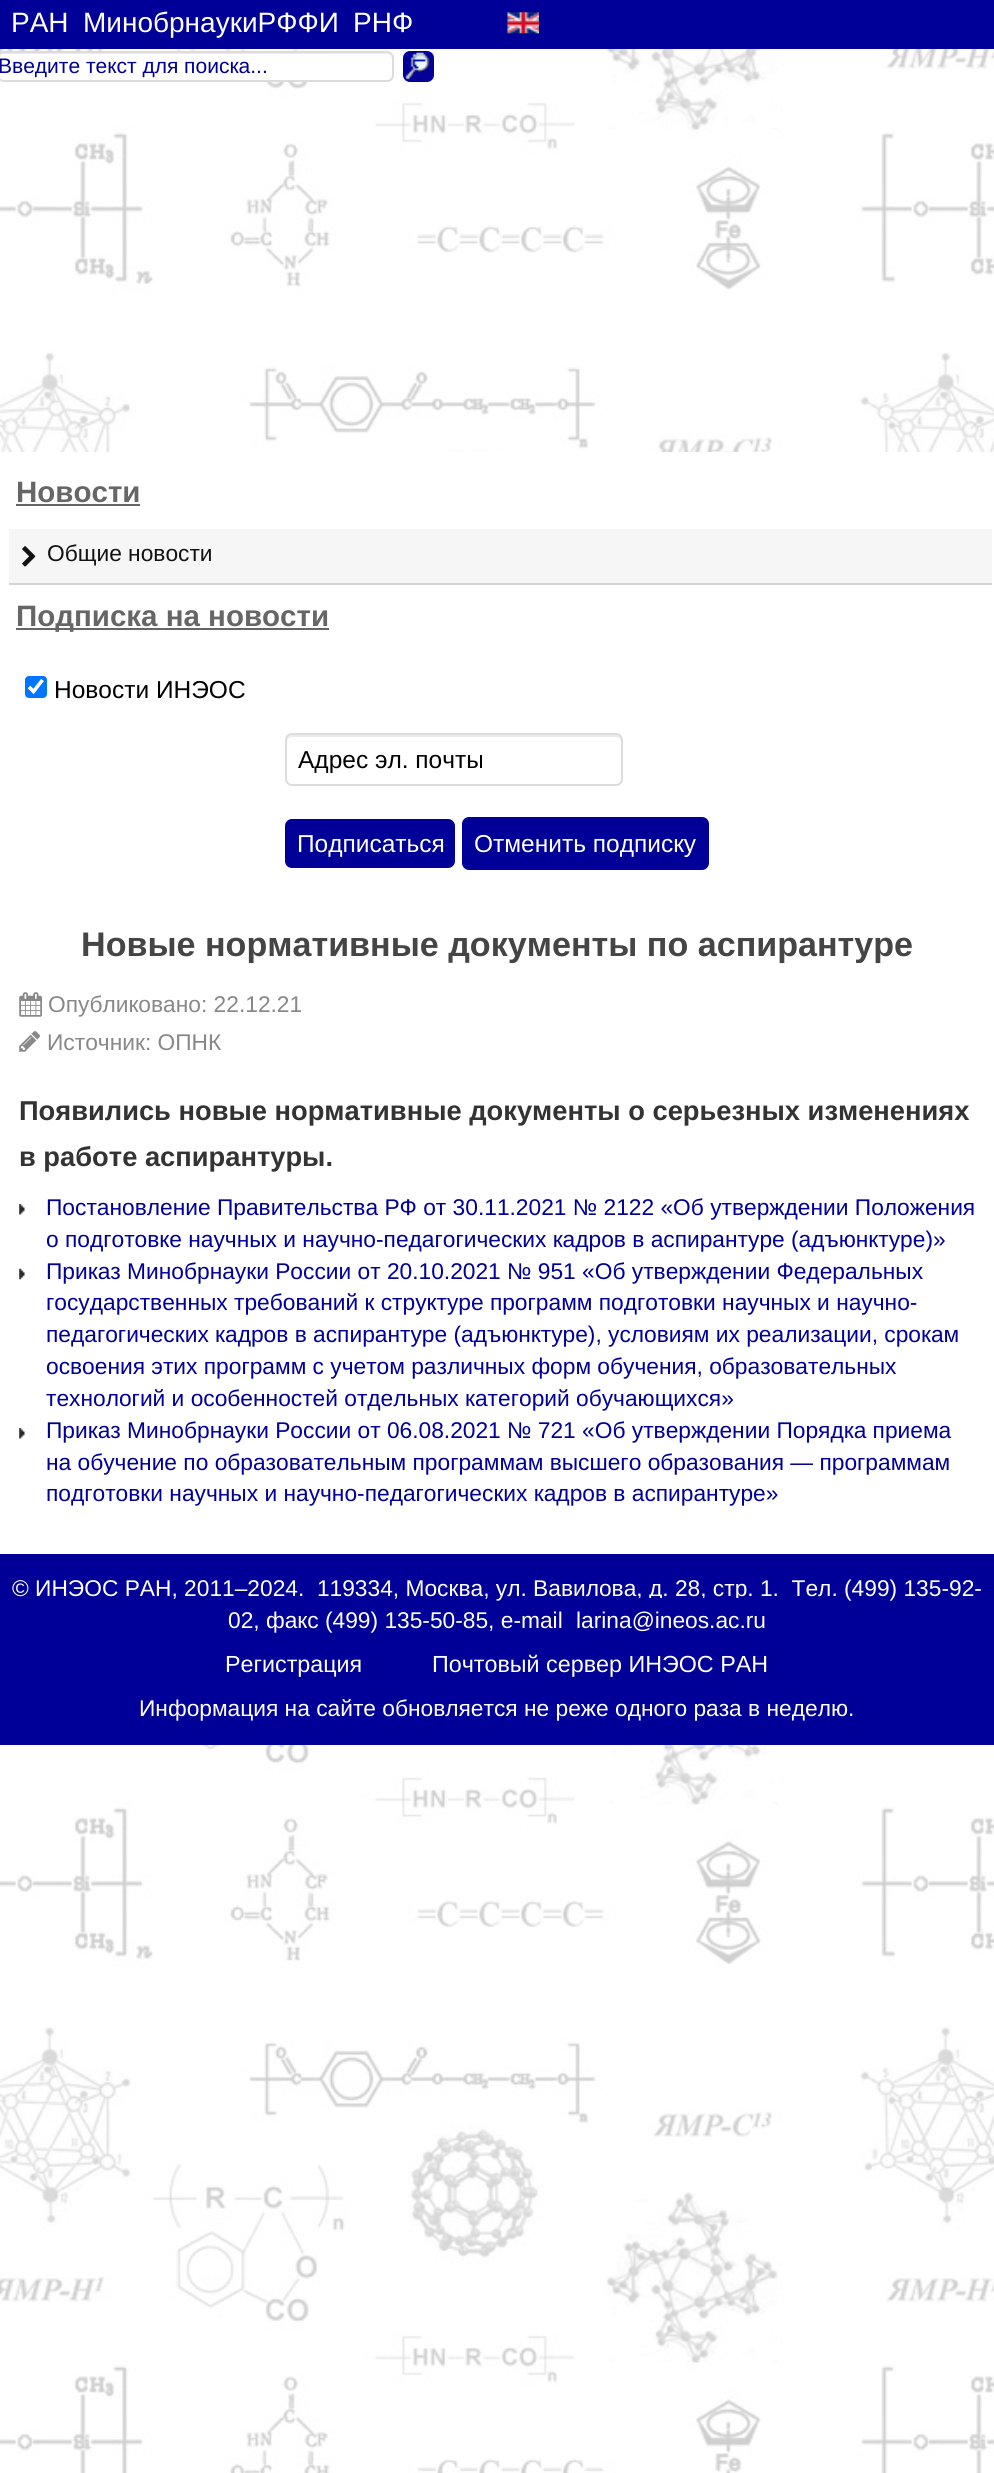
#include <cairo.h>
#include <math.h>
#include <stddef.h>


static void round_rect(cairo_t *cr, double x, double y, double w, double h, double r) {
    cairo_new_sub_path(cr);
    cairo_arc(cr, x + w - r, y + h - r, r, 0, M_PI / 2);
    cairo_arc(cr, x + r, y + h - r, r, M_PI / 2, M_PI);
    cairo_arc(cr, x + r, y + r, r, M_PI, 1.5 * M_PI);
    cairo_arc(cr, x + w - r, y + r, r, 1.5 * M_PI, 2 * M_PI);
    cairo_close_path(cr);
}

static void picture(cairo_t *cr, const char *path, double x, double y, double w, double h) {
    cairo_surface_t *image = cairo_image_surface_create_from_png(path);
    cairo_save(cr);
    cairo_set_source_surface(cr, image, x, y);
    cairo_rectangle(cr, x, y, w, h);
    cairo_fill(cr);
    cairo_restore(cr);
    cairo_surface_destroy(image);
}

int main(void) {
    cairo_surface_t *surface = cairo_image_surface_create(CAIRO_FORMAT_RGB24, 994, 2473);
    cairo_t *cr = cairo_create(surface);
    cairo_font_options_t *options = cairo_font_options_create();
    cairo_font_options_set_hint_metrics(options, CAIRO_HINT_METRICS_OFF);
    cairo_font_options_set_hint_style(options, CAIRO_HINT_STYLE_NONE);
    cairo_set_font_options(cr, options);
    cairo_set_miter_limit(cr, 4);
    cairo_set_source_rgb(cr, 1, 1, 1);
    cairo_paint(cr);
    picture(cr, "img1.png", 0, 49, 994, 2424);
    cairo_set_source_rgb(cr, 0, 0, 0.6);
    cairo_rectangle(cr, 0, 0, 994, 49);
    cairo_fill(cr);
    cairo_select_font_face(cr, "Liberation Sans", CAIRO_FONT_SLANT_NORMAL, CAIRO_FONT_WEIGHT_NORMAL);
    cairo_set_font_size(cr, 28);
    cairo_set_source_rgb(cr, 1, 1, 1);
    cairo_move_to(cr, 11, 32);
    cairo_show_text(cr, "РАН");
    cairo_move_to(cr, 83, 32);
    cairo_show_text(cr, "МинобрнаукиРФФИ");
    cairo_move_to(cr, 353, 32);
    cairo_show_text(cr, "РНФ");
    picture(cr, "img2.png", 507, 21, 1, 11);
    picture(cr, "img3.png", 507, 12, 32, 22);
    round_rect(cr, -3, 51, 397, 31, 7);
    cairo_fill(cr);
    cairo_set_source_rgb(cr, 0.925, 0.925, 0.925);
    cairo_new_path(cr);
    cairo_move_to(cr, 4, 54);
    cairo_line_to(cr, 387, 54);
    cairo_curve_to(cr, 390, 54, 392, 57, 392, 60);
    cairo_line_to(cr, 392, 58);
    cairo_curve_to(cr, 392, 55, 390, 53, 387, 53);
    cairo_line_to(cr, 3, 53);
    cairo_curve_to(cr, 0, 53, -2, 55, -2, 58);
    cairo_line_to(cr, -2, 60);
    cairo_curve_to(cr, -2, 57, 1, 54, 4, 54);
    cairo_close_path(cr);
    cairo_fill(cr);
    round_rect(cr, -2, 52, 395, 29, 6);
    cairo_set_source_rgb(cr, 0.863, 0.863, 0.863);
    cairo_stroke(cr);
    cairo_set_font_size(cr, 21);
    cairo_set_source_rgb(cr, 0, 0, 0.6);
    cairo_move_to(cr, -2, 73);
    cairo_show_text(cr, "Введите текст для поиска...");
    round_rect(cr, 403, 51, 31, 31, 7);
    cairo_fill(cr);
    picture(cr, "img4.png", 405, 52, 25, 28);
    cairo_set_source_rgb(cr, 1, 1, 1);
    cairo_rectangle(cr, 0, 452, 994, 1102);
    cairo_fill(cr);
    cairo_select_font_face(cr, "Liberation Sans", CAIRO_FONT_SLANT_NORMAL, CAIRO_FONT_WEIGHT_BOLD);
    cairo_set_font_size(cr, 29.5);
    cairo_set_source_rgb(cr, 0.4, 0.4, 0.4);
    cairo_move_to(cr, 16, 502);
    cairo_show_text(cr, "Новости");
    cairo_rectangle(cr, 16, 504, 124, 2);
    cairo_fill(cr);
    cairo_set_source_rgb(cr, 0.961, 0.961, 0.961);
    cairo_rectangle(cr, 9, 529, 983, 54);
    cairo_fill(cr);
    cairo_set_source_rgb(cr, 0.831, 0.831, 0.831);
    cairo_rectangle(cr, 9, 583, 983, 2);
    cairo_fill(cr);
    picture(cr, "img5.png", 22, 546, 14, 21);
    cairo_select_font_face(cr, "Liberation Sans", CAIRO_FONT_SLANT_NORMAL, CAIRO_FONT_WEIGHT_NORMAL);
    cairo_set_font_size(cr, 22.75);
    cairo_set_source_rgb(cr, 0.071, 0.071, 0.071);
    cairo_move_to(cr, 47, 561);
    cairo_show_text(cr, "Общие новости");
    cairo_set_source_rgb(cr, 0.4, 0.4, 0.4);
    cairo_rectangle(cr, 16, 628, 184, 2);
    cairo_fill(cr);
    cairo_select_font_face(cr, "Liberation Sans", CAIRO_FONT_SLANT_NORMAL, CAIRO_FONT_WEIGHT_BOLD);
    cairo_set_font_size(cr, 29.5);
    cairo_move_to(cr, 16, 626);
    cairo_show_text(cr, "Подписка на новости");
    cairo_rectangle(cr, 200, 628, 129, 2);
    cairo_fill(cr);
    cairo_set_source_rgb(cr, 0, 0.459, 1);
    round_rect(cr, 25, 676, 22, 22, 4);
    cairo_fill(cr);
    cairo_new_path(cr);
    cairo_move_to(cr, 29, 687);
    cairo_line_to(cr, 33.5, 691.5);
    cairo_line_to(cr, 42.5, 680);
    cairo_set_source_rgb(cr, 1, 1, 1);
    cairo_set_line_width(cr, 3.6);
    cairo_stroke(cr);
    cairo_select_font_face(cr, "Liberation Sans", CAIRO_FONT_SLANT_NORMAL, CAIRO_FONT_WEIGHT_NORMAL);
    cairo_set_font_size(cr, 24.5);
    cairo_set_source_rgb(cr, 0, 0, 0);
    cairo_move_to(cr, 54, 698);
    cairo_show_text(cr, "Новости ИНЭОС");
    cairo_set_source_rgb(cr, 0.925, 0.925, 0.925);
    cairo_new_path(cr);
    cairo_move_to(cr, 292, 737);
    cairo_line_to(cr, 616, 737);
    cairo_curve_to(cr, 619, 737, 621, 739, 621, 742);
    cairo_line_to(cr, 621, 740);
    cairo_curve_to(cr, 621, 737, 619, 735, 616, 735);
    cairo_line_to(cr, 292, 735);
    cairo_curve_to(cr, 289, 735, 287, 737, 287, 740);
    cairo_line_to(cr, 287, 742);
    cairo_curve_to(cr, 287, 739, 289, 737, 292, 737);
    cairo_close_path(cr);
    cairo_fill(cr);
    round_rect(cr, 286, 734, 336, 51, 6);
    cairo_set_source_rgb(cr, 0.863, 0.863, 0.863);
    cairo_set_line_width(cr, 2);
    cairo_stroke(cr);
    cairo_set_source_rgb(cr, 0, 0, 0);
    cairo_move_to(cr, 298, 768);
    cairo_show_text(cr, "Адрес эл. почты");
    cairo_set_source_rgb(cr, 0, 0, 0.6);
    round_rect(cr, 285, 819, 170, 49, 7);
    cairo_fill(cr);
    cairo_set_source_rgb(cr, 1, 1, 1);
    cairo_move_to(cr, 297, 852);
    cairo_show_text(cr, "Подписаться");
    cairo_set_source_rgb(cr, 0, 0, 0.6);
    round_rect(cr, 462, 817, 247, 53, 7);
    cairo_fill(cr);
    cairo_set_source_rgb(cr, 1, 1, 1);
    cairo_move_to(cr, 474, 852);
    cairo_show_text(cr, "Отменить подписку");
    cairo_select_font_face(cr, "Liberation Sans", CAIRO_FONT_SLANT_NORMAL, CAIRO_FONT_WEIGHT_BOLD);
    cairo_set_font_size(cr, 34.1);
    cairo_set_source_rgb(cr, 0.271, 0.271, 0.271);
    cairo_move_to(cr, 81, 956);
    cairo_show_text(cr, "Новые нормативные документы по аспирантуре");
    picture(cr, "img6.png", 19, 992, 23, 25);
    cairo_select_font_face(cr, "Liberation Sans", CAIRO_FONT_SLANT_NORMAL, CAIRO_FONT_WEIGHT_NORMAL);
    cairo_set_font_size(cr, 22.75);
    cairo_set_source_rgb(cr, 0.533, 0.533, 0.533);
    cairo_move_to(cr, 48, 1012);
    cairo_show_text(cr, "Опубликовано: 22.12.21");
    picture(cr, "img7.png", 19, 1031, 21, 21);
    cairo_move_to(cr, 47, 1050);
    cairo_show_text(cr, "Источник: ОПНК");
    cairo_select_font_face(cr, "Liberation Sans", CAIRO_FONT_SLANT_NORMAL, CAIRO_FONT_WEIGHT_BOLD);
    cairo_set_font_size(cr, 27.3);
    cairo_set_source_rgb(cr, 0.2, 0.2, 0.2);
    cairo_move_to(cr, 19, 1120);
    cairo_show_text(cr, "Появились новые нормативные документы о серьезных изменениях");
    cairo_move_to(cr, 19, 1166);
    cairo_show_text(cr, "в работе аспирантуры.");
    picture(cr, "img8.png", 19, 1204, 6, 11);
    cairo_select_font_face(cr, "Liberation Sans", CAIRO_FONT_SLANT_NORMAL, CAIRO_FONT_WEIGHT_NORMAL);
    cairo_set_font_size(cr, 22.75);
    cairo_set_source_rgb(cr, 0, 0, 0.6);
    cairo_move_to(cr, 46, 1215);
    cairo_show_text(cr, "Постановление Правительства РФ от 30.11.2021 № 2122 «Об утверждении Положения");
    cairo_move_to(cr, 46, 1247);
    cairo_show_text(cr, "о подготовке научных и научно-педагогических кадров в аспирантуре (адъюнктуре)»");
    picture(cr, "img9.png", 19, 1268, 6, 12);
    cairo_move_to(cr, 46, 1279);
    cairo_show_text(cr, "Приказ Минобрнауки России от 20.10.2021 № 951 «Об утверждении Федеральных");
    cairo_move_to(cr, 46, 1310);
    cairo_show_text(cr, "государственных требований к структуре программ подготовки научных и научно-");
    cairo_move_to(cr, 46, 1342);
    cairo_show_text(cr, "педагогических кадров в аспирантуре (адъюнктуре), условиям их реализации, срокам");
    cairo_move_to(cr, 46, 1374);
    cairo_show_text(cr, "освоения этих программ с учетом различных форм обучения, образовательных");
    cairo_move_to(cr, 46, 1406);
    cairo_show_text(cr, "технологий и особенностей отдельных категорий обучающихся»");
    picture(cr, "img8.png", 19, 1428, 6, 11);
    cairo_move_to(cr, 46, 1438);
    cairo_show_text(cr, "Приказ Минобрнауки России от 06.08.2021 № 721 «Об утверждении Порядка приема");
    cairo_move_to(cr, 46, 1470);
    cairo_show_text(cr, "на обучение по образовательным программам высшего образования — программам");
    cairo_move_to(cr, 46, 1501);
    cairo_show_text(cr, "подготовки научных и научно-педагогических кадров в аспирантуре»");
    cairo_rectangle(cr, 0, 1554, 994, 191);
    cairo_fill(cr);
    cairo_set_source_rgb(cr, 1, 1, 1);
    cairo_move_to(cr, 12, 1596);
    cairo_show_text(cr, "© ИНЭОС РАН, 2011–2024.  119334, Москва, ул. Вавилова, д. 28, стр. 1.  Тел. (499) 135-92-");
    cairo_move_to(cr, 228, 1628);
    cairo_show_text(cr, "02, факс (499) 135-50-85, e-mail");
    cairo_move_to(cr, 576, 1628);
    cairo_show_text(cr, "larina@ineos.ac.ru");
    cairo_set_source_rgb(cr, 0, 0, 0.6);
    cairo_rectangle(cr, 638, 1598, 24, 3);
    cairo_fill(cr);
    cairo_rectangle(cr, 702, 1598, 2, 1);
    cairo_fill(cr);
    cairo_rectangle(cr, 736, 1598, 3, 3);
    cairo_fill(cr);
    cairo_set_font_size(cr, 23.3);
    cairo_set_source_rgb(cr, 1, 1, 1);
    cairo_move_to(cr, 225, 1672);
    cairo_show_text(cr, "Регистрация");
    cairo_move_to(cr, 432, 1672);
    cairo_show_text(cr, "Почтовый сервер ИНЭОС РАН");
    cairo_set_font_size(cr, 22.75);
    cairo_move_to(cr, 139, 1716);
    cairo_show_text(cr, "Информация на сайте обновляется не реже одного раза в неделю.");
    cairo_surface_write_to_png(surface, "page.png");
    cairo_font_options_destroy(options);
    cairo_destroy(cr);
    cairo_surface_destroy(surface);
    return 0;
}
